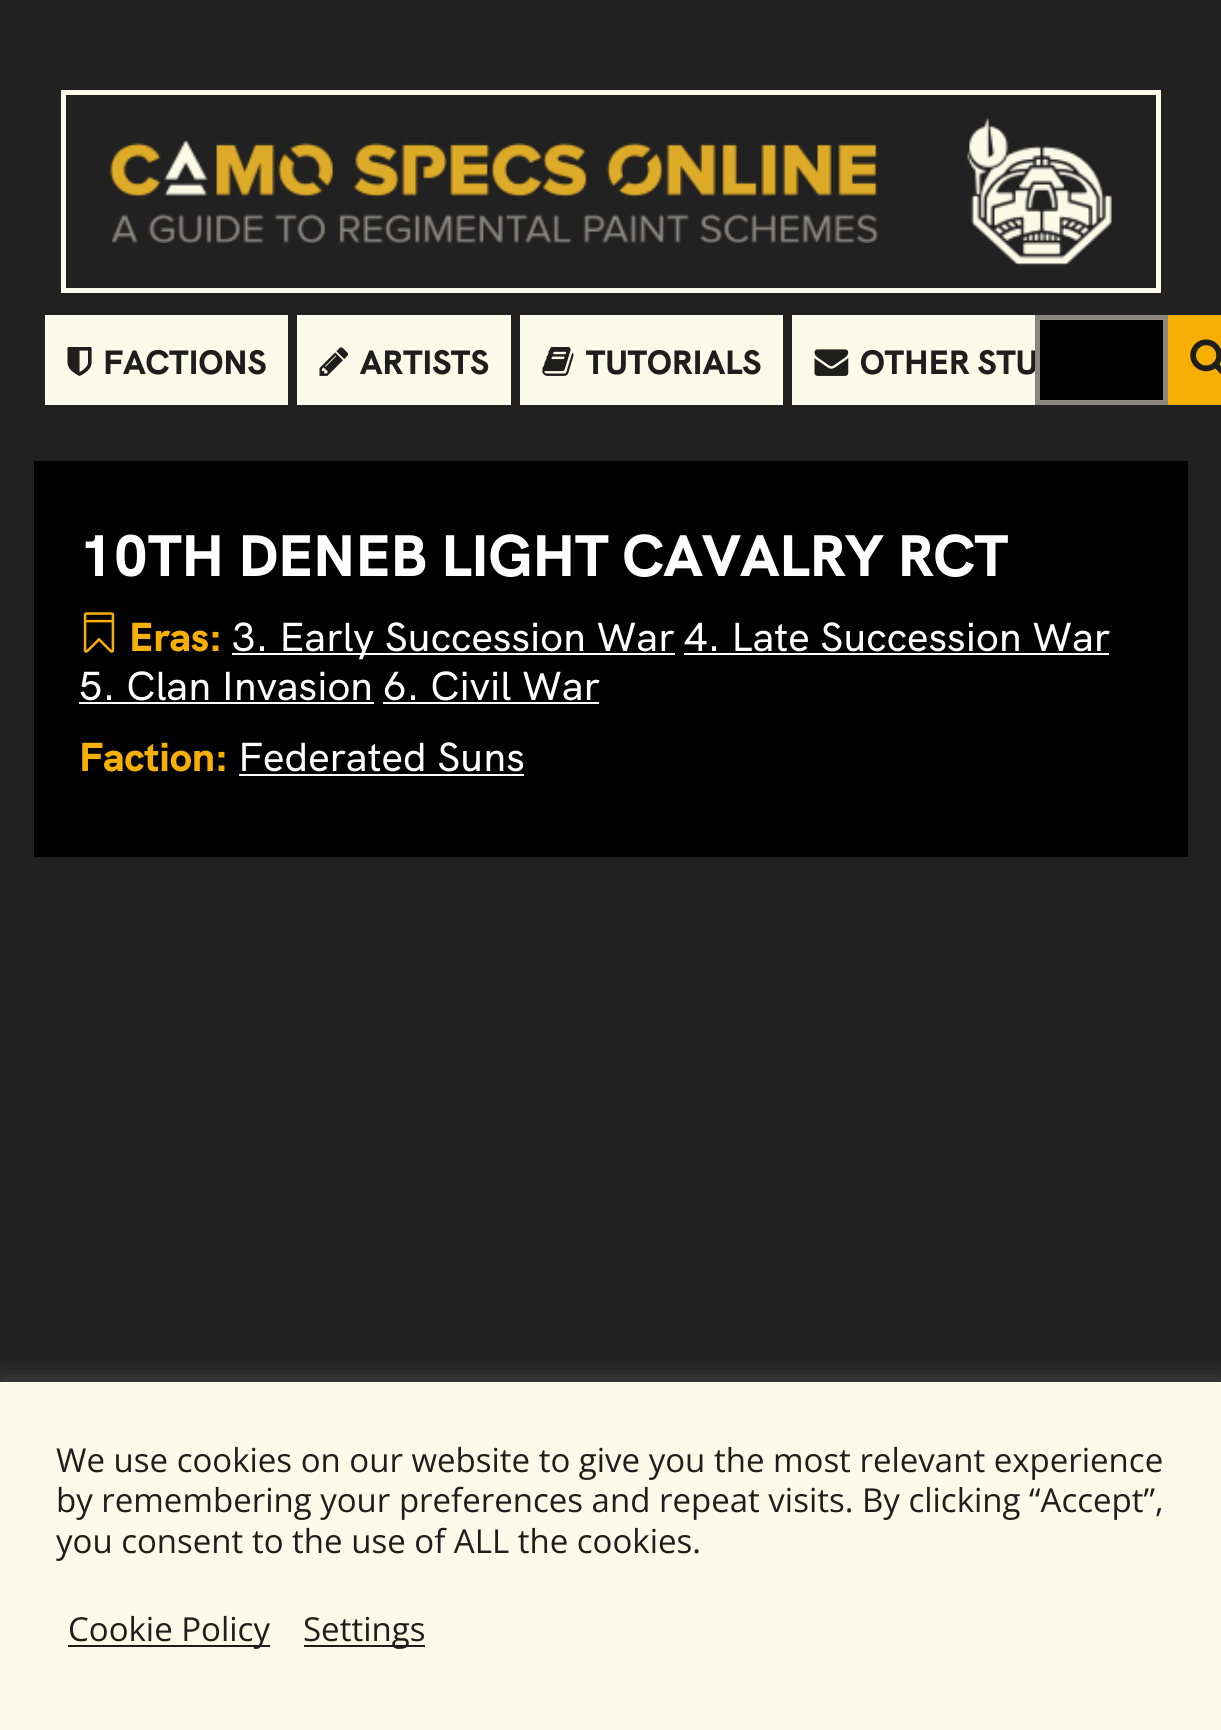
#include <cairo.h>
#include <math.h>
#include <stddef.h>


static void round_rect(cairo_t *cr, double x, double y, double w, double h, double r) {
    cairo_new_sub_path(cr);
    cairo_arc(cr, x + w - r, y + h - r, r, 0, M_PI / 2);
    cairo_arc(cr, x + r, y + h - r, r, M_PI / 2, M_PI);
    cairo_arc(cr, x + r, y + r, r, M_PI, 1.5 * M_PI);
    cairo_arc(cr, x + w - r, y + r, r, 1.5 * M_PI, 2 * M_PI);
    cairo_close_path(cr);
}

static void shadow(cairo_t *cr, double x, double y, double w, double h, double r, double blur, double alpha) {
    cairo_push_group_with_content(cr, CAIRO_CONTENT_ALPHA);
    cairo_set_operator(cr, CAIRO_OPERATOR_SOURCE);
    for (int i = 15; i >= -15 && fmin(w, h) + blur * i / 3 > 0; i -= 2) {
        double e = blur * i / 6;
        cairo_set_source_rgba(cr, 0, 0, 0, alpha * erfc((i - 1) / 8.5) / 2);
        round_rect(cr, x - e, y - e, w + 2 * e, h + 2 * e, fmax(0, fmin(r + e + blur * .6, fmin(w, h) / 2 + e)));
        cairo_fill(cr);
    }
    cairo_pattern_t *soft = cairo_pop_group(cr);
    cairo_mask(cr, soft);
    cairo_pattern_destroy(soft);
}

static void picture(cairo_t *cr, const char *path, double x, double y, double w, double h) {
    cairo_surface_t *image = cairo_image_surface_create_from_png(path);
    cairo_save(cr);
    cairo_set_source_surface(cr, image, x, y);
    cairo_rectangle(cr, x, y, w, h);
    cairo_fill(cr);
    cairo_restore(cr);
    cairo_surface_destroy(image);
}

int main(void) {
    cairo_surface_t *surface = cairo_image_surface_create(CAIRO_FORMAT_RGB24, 1221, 1730);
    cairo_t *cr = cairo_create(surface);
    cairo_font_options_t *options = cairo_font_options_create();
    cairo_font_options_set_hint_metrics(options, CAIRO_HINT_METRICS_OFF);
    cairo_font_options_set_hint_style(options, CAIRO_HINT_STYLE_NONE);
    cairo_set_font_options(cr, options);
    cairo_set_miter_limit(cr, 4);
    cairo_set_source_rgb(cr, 0.129, 0.129, 0.133);
    cairo_paint(cr);
    cairo_rectangle(cr, 63.5, 92.5, 1095, 198);
    cairo_set_source_rgb(cr, 0.984, 0.984, 0.914);
    cairo_set_line_width(cr, 5);
    cairo_stroke(cr);
    picture(cr, "img1.png", 110, 140, 768, 103);
    picture(cr, "img2.png", 967, 118, 145, 148);
    cairo_rectangle(cr, 45, 315, 243, 90);
    cairo_fill(cr);
    picture(cr, "img3.png", 67, 347, 25, 29);
    cairo_select_font_face(cr, "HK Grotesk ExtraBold", CAIRO_FONT_SLANT_NORMAL, CAIRO_FONT_WEIGHT_NORMAL);
    cairo_set_font_size(cr, 33.75);
    cairo_set_source_rgb(cr, 0.118, 0.118, 0.114);
    cairo_move_to(cr, 103, 374);
    cairo_show_text(cr, "FACTIONS");
    cairo_set_source_rgb(cr, 0.984, 0.984, 0.914);
    cairo_rectangle(cr, 297, 315, 214, 90);
    cairo_fill(cr);
    picture(cr, "img4.png", 319, 347, 29, 29);
    cairo_set_source_rgb(cr, 0.118, 0.118, 0.114);
    cairo_move_to(cr, 360, 374);
    cairo_show_text(cr, "ARTISTS");
    cairo_set_source_rgb(cr, 0.984, 0.984, 0.914);
    cairo_rectangle(cr, 520, 315, 263, 90);
    cairo_fill(cr);
    picture(cr, "img5.png", 542, 347, 32, 29);
    cairo_set_source_rgb(cr, 0.118, 0.118, 0.114);
    cairo_move_to(cr, 586, 374);
    cairo_show_text(cr, "TUTORIALS");
    cairo_set_source_rgb(cr, 0.984, 0.984, 0.914);
    cairo_rectangle(cr, 792, 315, 243, 90);
    cairo_fill(cr);
    picture(cr, "img6.png", 814, 349, 35, 27);
    cairo_set_source_rgb(cr, 0.118, 0.118, 0.114);
    cairo_move_to(cr, 860, 374);
    cairo_show_text(cr, "OTHER STU");
    cairo_set_source_rgb(cr, 0, 0, 0);
    cairo_rectangle(cr, 1037.5, 317.5, 128, 85);
    cairo_fill_preserve(cr);
    cairo_set_source_rgb(cr, 0.537, 0.529, 0.498);
    cairo_stroke(cr);
    cairo_set_source_rgb(cr, 0.961, 0.686, 0.008);
    cairo_rectangle(cr, 1168, 315, 53, 90);
    cairo_fill(cr);
    picture(cr, "img7.png", 1190, 339, 31, 36);
    cairo_set_source_rgb(cr, 0, 0, 0);
    cairo_rectangle(cr, 34, 461, 1154, 396);
    cairo_fill(cr);
    cairo_set_font_size(cr, 58.5);
    cairo_set_source_rgb(cr, 1, 1, 1);
    cairo_move_to(cr, 79, 576);
    cairo_show_text(cr, "10TH DENEB LIGHT CAVALRY RCT");
    picture(cr, "img8.png", 83, 612, 32, 41);
    cairo_set_font_size(cr, 40.5);
    cairo_set_source_rgb(cr, 0.961, 0.686, 0.008);
    cairo_move_to(cr, 129, 651);
    cairo_show_text(cr, "Eras:");
    cairo_set_source_rgb(cr, 1, 1, 1);
    cairo_rectangle(cr, 232, 653, 443, 2);
    cairo_fill(cr);
    cairo_select_font_face(cr, "HK Grotesk Medium", CAIRO_FONT_SLANT_NORMAL, CAIRO_FONT_WEIGHT_NORMAL);
    cairo_move_to(cr, 232, 651);
    cairo_show_text(cr, "3. Early Succession War");
    cairo_move_to(cr, 684, 651);
    cairo_show_text(cr, "4. Late Succession War");
    cairo_rectangle(cr, 684, 653, 425, 2);
    cairo_fill(cr);
    cairo_move_to(cr, 79, 700);
    cairo_show_text(cr, "5. Clan Invasion");
    cairo_rectangle(cr, 79, 702, 295, 2);
    cairo_fill(cr);
    cairo_move_to(cr, 383, 700);
    cairo_show_text(cr, "6. Civil War");
    cairo_rectangle(cr, 383, 702, 216, 2);
    cairo_fill(cr);
    cairo_select_font_face(cr, "HK Grotesk ExtraBold", CAIRO_FONT_SLANT_NORMAL, CAIRO_FONT_WEIGHT_NORMAL);
    cairo_set_source_rgb(cr, 0.961, 0.686, 0.008);
    cairo_move_to(cr, 79, 771);
    cairo_show_text(cr, "Faction:");
    cairo_select_font_face(cr, "HK Grotesk Medium", CAIRO_FONT_SLANT_NORMAL, CAIRO_FONT_WEIGHT_NORMAL);
    cairo_set_source_rgb(cr, 1, 1, 1);
    cairo_move_to(cr, 238, 771);
    cairo_show_text(cr, "Federated Suns");
    cairo_rectangle(cr, 239, 774, 285, 2);
    cairo_fill(cr);
    cairo_set_source_rgb(cr, 0.675, 0.671, 0.671);
    shadow(cr, 0, 1379, 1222, 349, 0, 11, 0.3);
    cairo_set_source_rgb(cr, 0.984, 0.984, 0.914);
    cairo_rectangle(cr, 0, 1382, 1221, 348);
    cairo_fill(cr);
    cairo_select_font_face(cr, "Open Sans", CAIRO_FONT_SLANT_NORMAL, CAIRO_FONT_WEIGHT_NORMAL);
    cairo_set_font_size(cr, 33);
    cairo_set_source_rgb(cr, 0.118, 0.118, 0.114);
    cairo_move_to(cr, 56, 1472);
    cairo_show_text(cr, "We use cookies on our website to give you the most relevant experience");
    cairo_move_to(cr, 56, 1512);
    cairo_show_text(cr, "by remembering your preferences and repeat visits. By clicking “Accept”,");
    cairo_move_to(cr, 56, 1553);
    cairo_show_text(cr, "you consent to the use of ALL the cookies.");
    cairo_rectangle(cr, 68, 1645, 202, 2);
    cairo_fill(cr);
    cairo_move_to(cr, 68, 1641);
    cairo_show_text(cr, "Cookie Policy");
    cairo_rectangle(cr, 304, 1645, 121, 2);
    cairo_fill(cr);
    cairo_move_to(cr, 303, 1641);
    cairo_show_text(cr, "Settings");
    cairo_surface_write_to_png(surface, "page.png");
    cairo_font_options_destroy(options);
    cairo_destroy(cr);
    cairo_surface_destroy(surface);
    return 0;
}
